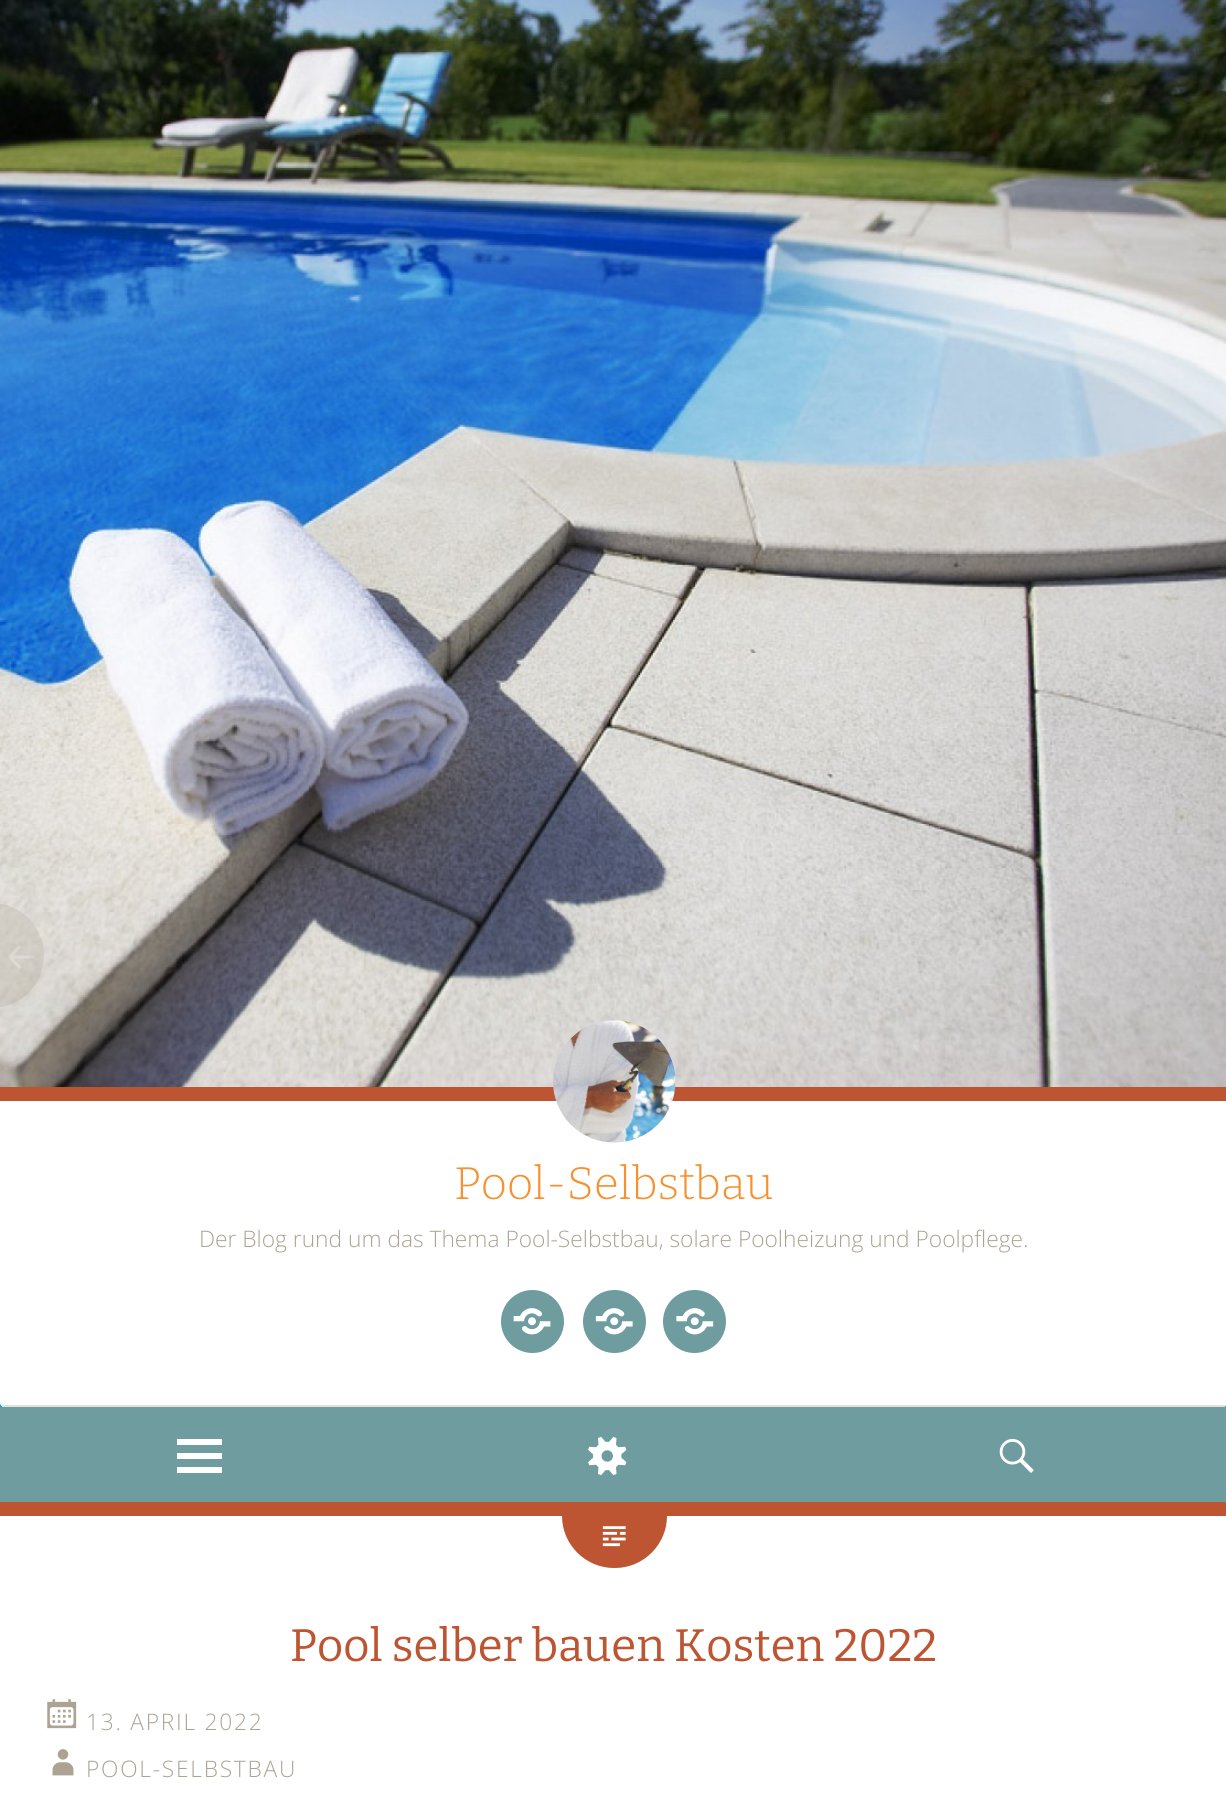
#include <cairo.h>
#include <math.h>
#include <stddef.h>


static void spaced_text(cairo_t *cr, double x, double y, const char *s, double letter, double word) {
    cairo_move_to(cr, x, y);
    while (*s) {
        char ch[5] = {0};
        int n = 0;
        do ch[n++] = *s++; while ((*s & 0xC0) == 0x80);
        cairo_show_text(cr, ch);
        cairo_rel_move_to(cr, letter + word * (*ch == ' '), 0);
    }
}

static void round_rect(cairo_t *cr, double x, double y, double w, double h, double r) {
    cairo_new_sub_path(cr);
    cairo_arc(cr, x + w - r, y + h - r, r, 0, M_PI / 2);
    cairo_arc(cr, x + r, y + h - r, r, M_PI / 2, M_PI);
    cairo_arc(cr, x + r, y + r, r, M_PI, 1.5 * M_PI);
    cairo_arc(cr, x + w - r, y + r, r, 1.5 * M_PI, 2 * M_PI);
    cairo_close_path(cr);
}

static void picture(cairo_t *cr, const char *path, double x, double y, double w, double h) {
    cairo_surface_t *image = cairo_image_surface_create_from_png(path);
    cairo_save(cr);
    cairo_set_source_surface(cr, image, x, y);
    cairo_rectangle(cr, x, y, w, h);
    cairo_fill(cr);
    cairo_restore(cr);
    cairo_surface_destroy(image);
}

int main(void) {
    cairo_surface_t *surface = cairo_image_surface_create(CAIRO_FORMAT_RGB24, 1226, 1804);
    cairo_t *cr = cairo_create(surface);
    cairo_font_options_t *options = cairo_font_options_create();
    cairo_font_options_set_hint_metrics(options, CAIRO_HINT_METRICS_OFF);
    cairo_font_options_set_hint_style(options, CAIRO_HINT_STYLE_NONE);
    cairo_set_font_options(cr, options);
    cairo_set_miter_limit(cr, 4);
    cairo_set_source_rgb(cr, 0, 0.631, 0.875);
    cairo_paint(cr);
    picture(cr, "img1.png", 0, 0, 1226, 1087);
    cairo_set_source_rgb(cr, 1, 1, 1);
    cairo_new_path(cr);
    cairo_move_to(cr, 0, 1101);
    cairo_line_to(cr, 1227, 1101);
    cairo_line_to(cr, 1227, 1403);
    cairo_curve_to(cr, 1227, 1405, 1225, 1407, 1223, 1407);
    cairo_line_to(cr, 4, 1407);
    cairo_curve_to(cr, 2, 1407, 0, 1405, 0, 1403);
    cairo_close_path(cr);
    cairo_fill(cr);
    cairo_set_source_rgb(cr, 0.894, 0.882, 0.863);
    cairo_rectangle(cr, 2, 1405, 1223, 2);
    cairo_fill(cr);
    cairo_set_source_rgb(cr, 0.741, 0.333, 0.196);
    cairo_rectangle(cr, 0, 1087, 1226, 14);
    cairo_fill(cr);
    picture(cr, "img2.png", 553, 1020, 123, 123);
    cairo_select_font_face(cr, "Bitter Light", CAIRO_FONT_SLANT_NORMAL, CAIRO_FONT_WEIGHT_NORMAL);
    cairo_set_font_size(cr, 45.5);
    cairo_set_source_rgb(cr, 0.965, 0.565, 0.18);
    cairo_move_to(cr, 454, 1199);
    cairo_show_text(cr, "Pool-Selbstbau");
    cairo_select_font_face(cr, "Open Sans Light", CAIRO_FONT_SLANT_NORMAL, CAIRO_FONT_WEIGHT_NORMAL);
    cairo_set_font_size(cr, 22.75);
    cairo_set_source_rgb(cr, 0.678, 0.639, 0.576);
    cairo_move_to(cr, 199, 1247);
    cairo_show_text(cr, "Der Blog rund um das Thema Pool-Selbstbau, solare Poolheizung und Poolpflege.");
    cairo_set_source_rgb(cr, 0.435, 0.616, 0.624);
    cairo_new_path(cr);
    cairo_arc(cr, 532.5, 1321.5, 31.5, 0, 2 * M_PI);
    cairo_fill(cr);
    picture(cr, "img3.png", 513, 1308, 38, 27);
    cairo_arc(cr, 614.5, 1321.5, 31.5, 0, 2 * M_PI);
    cairo_fill(cr);
    picture(cr, "img4.png", 595, 1308, 38, 27);
    cairo_arc(cr, 694.5, 1321.5, 31.5, 0, 2 * M_PI);
    cairo_fill(cr);
    picture(cr, "img5.png", 676, 1308, 38, 27);
    cairo_rectangle(cr, 0, 1407, 1226, 95);
    cairo_fill(cr);
    cairo_set_source_rgb(cr, 1, 1, 1);
    cairo_new_path(cr);
    cairo_move_to(cr, 177, 1473);
    cairo_line_to(cr, 177, 1467);
    cairo_line_to(cr, 222, 1467);
    cairo_line_to(cr, 222, 1473);
    cairo_close_path(cr);
    cairo_move_to(cr, 177, 1439);
    cairo_line_to(cr, 222, 1439);
    cairo_line_to(cr, 222, 1445);
    cairo_line_to(cr, 177, 1445);
    cairo_close_path(cr);
    cairo_move_to(cr, 177, 1459);
    cairo_line_to(cr, 177, 1453);
    cairo_line_to(cr, 222, 1453);
    cairo_line_to(cr, 222, 1459);
    cairo_close_path(cr);
    cairo_fill(cr);
    picture(cr, "img6.png", 588, 1436, 39, 40);
    picture(cr, "img7.png", 999, 1438, 35, 35);
    cairo_set_source_rgba(cr, 0.678, 0.639, 0.576, 0.25);
    round_rect(cr, -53, 903, 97, 105, 52.5);
    cairo_fill(cr);
    cairo_set_source_rgba(cr, 1, 1, 1, 0.25);
    cairo_new_path(cr);
    cairo_move_to(cr, 19, 945);
    cairo_line_to(cr, 21.5, 947.5);
    cairo_line_to(cr, 13, 955.5);
    cairo_line_to(cr, 34.5, 955.5);
    cairo_line_to(cr, 34.5, 958.5);
    cairo_line_to(cr, 13, 958.5);
    cairo_line_to(cr, 21.5, 967);
    cairo_line_to(cr, 19, 969);
    cairo_line_to(cr, 7.5, 957);
    cairo_close_path(cr);
    cairo_fill(cr);
    cairo_set_source_rgb(cr, 1, 1, 1);
    cairo_rectangle(cr, 0, 1516, 1226, 288);
    cairo_fill(cr);
    cairo_set_source_rgb(cr, 0.741, 0.333, 0.196);
    cairo_rectangle(cr, 0, 1502, 1226, 14);
    cairo_fill(cr);
    cairo_new_path(cr);
    cairo_move_to(cr, 562, 1516);
    cairo_line_to(cr, 667, 1516);
    cairo_curve_to(cr, 667, 1544.5, 643.5, 1568, 615, 1568);
    cairo_line_to(cr, 614, 1568);
    cairo_curve_to(cr, 585.5, 1568, 562, 1544.5, 562, 1516);
    cairo_close_path(cr);
    cairo_fill(cr);
    picture(cr, "img8.png", 602, 1526, 24, 21);
    cairo_select_font_face(cr, "Bitter", CAIRO_FONT_SLANT_NORMAL, CAIRO_FONT_WEIGHT_NORMAL);
    cairo_set_font_size(cr, 45.5);
    cairo_move_to(cr, 290, 1661);
    cairo_show_text(cr, "Pool selber bauen Kosten 2022");
    picture(cr, "img9.png", 47, 1699, 30, 30);
    cairo_select_font_face(cr, "Open Sans Light", CAIRO_FONT_SLANT_NORMAL, CAIRO_FONT_WEIGHT_NORMAL);
    cairo_set_font_size(cr, 22.75);
    cairo_set_source_rgb(cr, 0.678, 0.639, 0.576);
    spaced_text(cr, 86, 1730, "13. APRIL 2022", 1.75, 0);
    picture(cr, "img10.png", 52, 1749, 22, 27);
    spaced_text(cr, 86, 1777, "POOL-SELBSTBAU", 1.75, 0);
    cairo_surface_write_to_png(surface, "page.png");
    cairo_font_options_destroy(options);
    cairo_destroy(cr);
    cairo_surface_destroy(surface);
    return 0;
}
